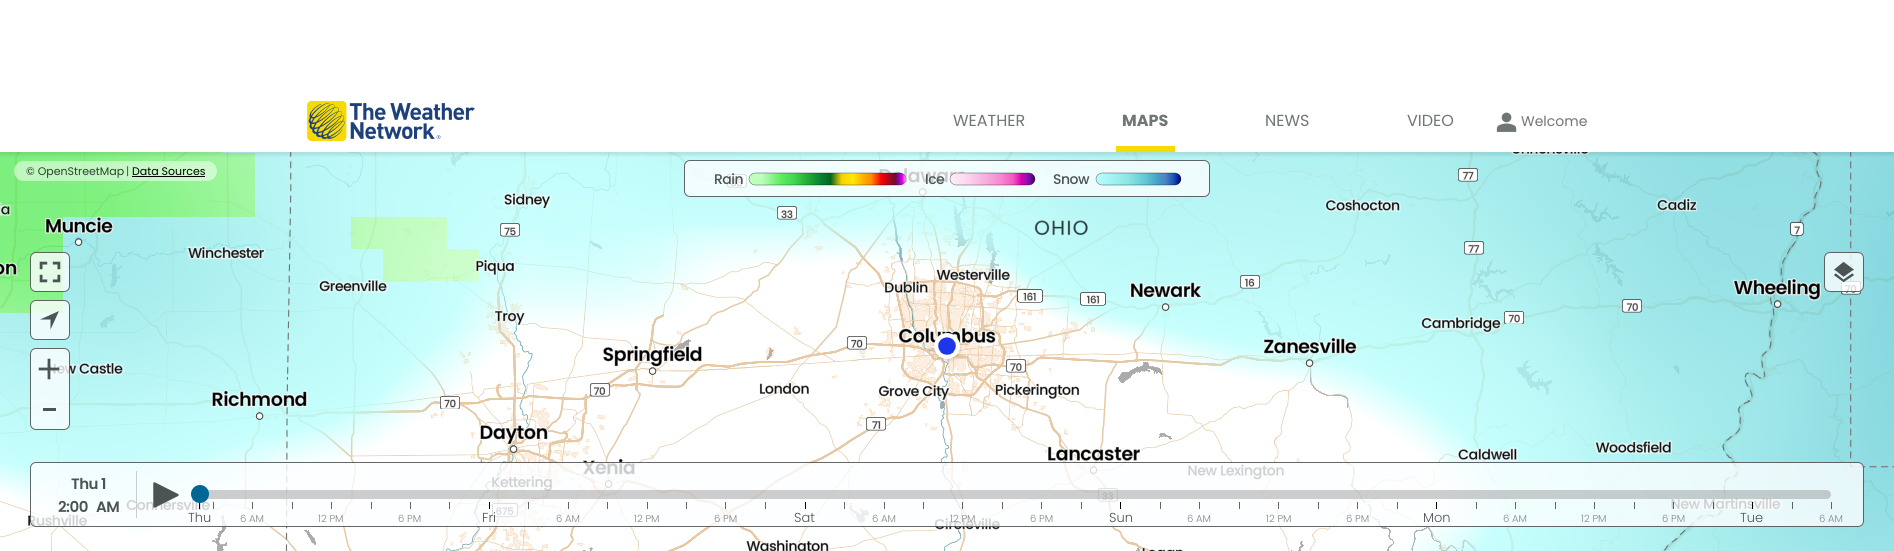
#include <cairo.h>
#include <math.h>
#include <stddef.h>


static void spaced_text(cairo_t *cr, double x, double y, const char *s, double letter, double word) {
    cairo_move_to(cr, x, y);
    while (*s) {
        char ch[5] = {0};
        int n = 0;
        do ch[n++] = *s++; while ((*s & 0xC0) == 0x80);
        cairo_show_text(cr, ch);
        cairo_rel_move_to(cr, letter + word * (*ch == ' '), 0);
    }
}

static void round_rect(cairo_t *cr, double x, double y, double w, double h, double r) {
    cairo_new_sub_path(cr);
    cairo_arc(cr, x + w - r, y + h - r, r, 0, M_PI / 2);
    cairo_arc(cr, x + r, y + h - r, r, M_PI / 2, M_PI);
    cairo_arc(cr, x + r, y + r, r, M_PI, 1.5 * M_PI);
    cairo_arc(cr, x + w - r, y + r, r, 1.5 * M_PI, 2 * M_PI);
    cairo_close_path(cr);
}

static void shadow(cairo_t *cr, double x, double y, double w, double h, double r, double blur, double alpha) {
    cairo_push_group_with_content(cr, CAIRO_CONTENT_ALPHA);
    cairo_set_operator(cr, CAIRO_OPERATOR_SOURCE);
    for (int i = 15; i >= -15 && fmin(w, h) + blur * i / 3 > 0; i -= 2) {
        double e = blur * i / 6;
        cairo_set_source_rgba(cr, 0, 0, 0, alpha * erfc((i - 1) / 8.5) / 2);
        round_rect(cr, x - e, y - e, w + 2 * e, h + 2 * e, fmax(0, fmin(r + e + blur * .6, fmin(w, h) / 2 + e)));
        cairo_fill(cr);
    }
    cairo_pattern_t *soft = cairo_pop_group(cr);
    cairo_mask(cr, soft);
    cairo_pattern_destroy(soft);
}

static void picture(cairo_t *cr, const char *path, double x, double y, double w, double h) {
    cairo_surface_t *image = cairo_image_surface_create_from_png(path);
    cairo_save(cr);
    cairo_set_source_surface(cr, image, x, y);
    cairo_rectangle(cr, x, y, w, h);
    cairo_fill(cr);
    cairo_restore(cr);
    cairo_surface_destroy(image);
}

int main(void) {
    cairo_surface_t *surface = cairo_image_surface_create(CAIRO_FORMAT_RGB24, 1894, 551);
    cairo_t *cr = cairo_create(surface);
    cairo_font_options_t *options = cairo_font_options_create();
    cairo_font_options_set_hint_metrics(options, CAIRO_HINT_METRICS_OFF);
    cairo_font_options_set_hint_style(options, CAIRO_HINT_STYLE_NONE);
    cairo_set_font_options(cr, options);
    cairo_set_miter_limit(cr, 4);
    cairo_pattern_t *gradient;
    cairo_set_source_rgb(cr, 1, 1, 1);
    cairo_paint(cr);
    picture(cr, "img3.png", 0, 152, 1894, 399);
    cairo_set_source_rgba(cr, 0.988, 0.992, 1, 0.8);
    round_rect(cr, 684, 160, 526, 37, 6);
    cairo_fill(cr);
    round_rect(cr, 684.5, 160.5, 525, 36, 5.5);
    cairo_set_source_rgba(cr, 0, 0, 0, 0.6);
    cairo_set_line_width(cr, 1);
    cairo_stroke(cr);
    cairo_save(cr);
    cairo_rectangle(cr, 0, 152, 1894, 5);
    cairo_clip(cr);
    cairo_set_source_rgb(cr, 0, 0, 0);
    shadow(cr, 0, 93, 1894, 62, 0, 2, 0.1);
    cairo_restore(cr);
    picture(cr, "img1.png", 307, 101, 168, 40);
    cairo_select_font_face(cr, "Poppins", CAIRO_FONT_SLANT_NORMAL, CAIRO_FONT_WEIGHT_NORMAL);
    cairo_set_font_size(cr, 16);
    cairo_set_source_rgb(cr, 0.439, 0.459, 0.459);
    cairo_move_to(cr, 953, 126);
    cairo_show_text(cr, "WEATHER");
    cairo_select_font_face(cr, "Poppins", CAIRO_FONT_SLANT_NORMAL, CAIRO_FONT_WEIGHT_BOLD);
    cairo_move_to(cr, 1122, 126);
    cairo_show_text(cr, "MAPS");
    cairo_set_source_rgb(cr, 0.965, 0.851, 0.024);
    cairo_rectangle(cr, 1116, 146, 59, 6);
    cairo_fill(cr);
    cairo_select_font_face(cr, "Poppins", CAIRO_FONT_SLANT_NORMAL, CAIRO_FONT_WEIGHT_NORMAL);
    cairo_set_source_rgb(cr, 0.439, 0.459, 0.459);
    cairo_move_to(cr, 1265, 126);
    cairo_show_text(cr, "NEWS");
    cairo_move_to(cr, 1407, 126);
    cairo_show_text(cr, "VIDEO");
    picture(cr, "img2.png", 1496, 112, 21, 20);
    cairo_set_font_size(cr, 14);
    cairo_move_to(cr, 1521, 126);
    cairo_show_text(cr, "Welcome");
    picture(cr, "img4.png", 932, 333, 30, 30);
    cairo_set_source_rgba(cr, 1, 1, 1, 0.5);
    round_rect(cr, 14, 161, 203, 20, 10);
    cairo_fill(cr);
    cairo_set_font_size(cr, 11);
    cairo_set_source_rgb(cr, 0.188, 0.243, 0.188);
    cairo_move_to(cr, 26, 175);
    cairo_show_text(cr, "© OpenStreetMap");
    cairo_set_source_rgb(cr, 0.298, 0.325, 0.325);
    cairo_move_to(cr, 126, 175);
    cairo_show_text(cr, "|");
    cairo_set_source_rgb(cr, 0, 0, 0);
    cairo_move_to(cr, 132, 175);
    cairo_show_text(cr, "Data Sources");
    cairo_rectangle(cr, 132, 176, 73, 1);
    cairo_fill(cr);
    gradient = cairo_pattern_create_linear(749, 179, 906, 179);
    cairo_pattern_add_color_stop_rgba(gradient, 0, 0.753, 0.996, 0.753, 1);
    cairo_pattern_add_color_stop_rgba(gradient, 0.08, 0.753, 0.996, 0.753, 1);
    cairo_pattern_add_color_stop_rgba(gradient, 0.2, 0.376, 0.933, 0.376, 1);
    cairo_pattern_add_color_stop_rgba(gradient, 0.29, 0.251, 0.835, 0.322, 1);
    cairo_pattern_add_color_stop_rgba(gradient, 0.37, 0.149, 0.675, 0.212, 1);
    cairo_pattern_add_color_stop_rgba(gradient, 0.46, 0.016, 0.506, 0.2, 1);
    cairo_pattern_add_color_stop_rgba(gradient, 0.52, 0.016, 0.4, 0.114, 1);
    cairo_pattern_add_color_stop_rgba(gradient, 0.59, 0.969, 0.82, 0, 1);
    cairo_pattern_add_color_stop_rgba(gradient, 0.66, 1, 0.914, 0.024, 1);
    cairo_pattern_add_color_stop_rgba(gradient, 0.72, 1, 0.71, 0.004, 1);
    cairo_pattern_add_color_stop_rgba(gradient, 0.78, 1, 0.541, 0.004, 1);
    cairo_pattern_add_color_stop_rgba(gradient, 0.84, 0.98, 0.016, 0.016, 1);
    cairo_pattern_add_color_stop_rgba(gradient, 0.93, 0.439, 0.039, 0.188, 1);
    cairo_pattern_add_color_stop_rgba(gradient, 0.95, 0.506, 0.024, 0.588, 1);
    cairo_pattern_add_color_stop_rgba(gradient, 0.97, 0.773, 0.024, 0.867, 1);
    cairo_pattern_add_color_stop_rgba(gradient, 0.98, 1, 0, 1, 1);
    cairo_pattern_add_color_stop_rgba(gradient, 1, 0.973, 0.906, 0.906, 1);
    cairo_set_source(cr, gradient);
    cairo_pattern_destroy(gradient);
    round_rect(cr, 749, 173, 157, 12, 6);
    cairo_fill(cr);
    cairo_new_path(cr);
    cairo_move_to(cr, 755, 173);
    cairo_line_to(cr, 900, 173);
    cairo_curve_to(cr, 903, 173, 906, 176, 906, 179);
    cairo_curve_to(cr, 906, 182, 903, 185, 900, 185);
    cairo_line_to(cr, 755, 185);
    cairo_curve_to(cr, 752, 185, 749, 182, 749, 179);
    cairo_curve_to(cr, 749, 176, 752, 173, 755, 173);
    cairo_close_path(cr);
    cairo_set_source_rgba(cr, 0, 0, 0, 0.6);
    cairo_set_line_width(cr, 0.5);
    cairo_stroke(cr);
    cairo_select_font_face(cr, "Poppins Medium", CAIRO_FONT_SLANT_NORMAL, CAIRO_FONT_WEIGHT_NORMAL);
    cairo_set_font_size(cr, 14);
    cairo_set_source_rgb(cr, 0.298, 0.325, 0.325);
    spaced_text(cr, 714, 184, "Rain", -0.5, 0);
    gradient = cairo_pattern_create_linear(950, 179, 1035, 179);
    cairo_pattern_add_color_stop_rgba(gradient, 0, 0.992, 0.933, 0.969, 1);
    cairo_pattern_add_color_stop_rgba(gradient, 0.19, 0.988, 0.847, 0.941, 1);
    cairo_pattern_add_color_stop_rgba(gradient, 0.4, 0.965, 0.698, 0.875, 1);
    cairo_pattern_add_color_stop_rgba(gradient, 0.59, 0.969, 0.541, 0.824, 1);
    cairo_pattern_add_color_stop_rgba(gradient, 0.74, 0.957, 0.349, 0.749, 1);
    cairo_pattern_add_color_stop_rgba(gradient, 0.8, 0.91, 0.141, 0.722, 1);
    cairo_pattern_add_color_stop_rgba(gradient, 0.84, 0.831, 0, 0.675, 1);
    cairo_pattern_add_color_stop_rgba(gradient, 0.89, 0.643, 0.063, 0.69, 1);
    cairo_pattern_add_color_stop_rgba(gradient, 0.94, 0.451, 0.039, 0.682, 1);
    cairo_pattern_add_color_stop_rgba(gradient, 0.97, 0.384, 0, 0.482, 1);
    cairo_pattern_add_color_stop_rgba(gradient, 1, 0.192, 0, 0.243, 1);
    cairo_set_source(cr, gradient);
    cairo_pattern_destroy(gradient);
    round_rect(cr, 950, 173, 85, 12, 6);
    cairo_fill(cr);
    cairo_new_path(cr);
    cairo_move_to(cr, 956, 173);
    cairo_line_to(cr, 1029, 173);
    cairo_curve_to(cr, 1032, 173, 1035, 176, 1035, 179);
    cairo_curve_to(cr, 1035, 182, 1032, 185, 1029, 185);
    cairo_line_to(cr, 956, 185);
    cairo_curve_to(cr, 953, 185, 950, 182, 950, 179);
    cairo_curve_to(cr, 950, 176, 953, 173, 956, 173);
    cairo_close_path(cr);
    cairo_set_source_rgba(cr, 0, 0, 0, 0.6);
    cairo_stroke(cr);
    cairo_set_source_rgb(cr, 0.298, 0.325, 0.325);
    spaced_text(cr, 925, 184, "Ice", -0.5, 0);
    gradient = cairo_pattern_create_linear(1096, 179, 1181, 179);
    cairo_pattern_add_color_stop_rgba(gradient, 0, 0.722, 1, 0.988, 1);
    cairo_pattern_add_color_stop_rgba(gradient, 0.38, 0.553, 0.898, 0.902, 1);
    cairo_pattern_add_color_stop_rgba(gradient, 0.59, 0.373, 0.78, 0.827, 1);
    cairo_pattern_add_color_stop_rgba(gradient, 0.72, 0.282, 0.639, 0.769, 1);
    cairo_pattern_add_color_stop_rgba(gradient, 0.78, 0.302, 0.553, 0.769, 1);
    cairo_pattern_add_color_stop_rgba(gradient, 0.82, 0.318, 0.498, 0.773, 1);
    cairo_pattern_add_color_stop_rgba(gradient, 0.85, 0.239, 0.443, 0.745, 1);
    cairo_pattern_add_color_stop_rgba(gradient, 0.88, 0.173, 0.392, 0.725, 1);
    cairo_pattern_add_color_stop_rgba(gradient, 0.92, 0.067, 0.314, 0.686, 1);
    cairo_pattern_add_color_stop_rgba(gradient, 0.98, 0.051, 0.027, 0.6, 1);
    cairo_pattern_add_color_stop_rgba(gradient, 1, 0.027, 0.012, 0.282, 1);
    cairo_set_source(cr, gradient);
    cairo_pattern_destroy(gradient);
    round_rect(cr, 1096, 173, 85, 12, 6);
    cairo_fill(cr);
    cairo_new_path(cr);
    cairo_move_to(cr, 1102, 173);
    cairo_line_to(cr, 1175, 173);
    cairo_curve_to(cr, 1178, 173, 1181, 176, 1181, 179);
    cairo_curve_to(cr, 1181, 182, 1178, 185, 1175, 185);
    cairo_line_to(cr, 1102, 185);
    cairo_curve_to(cr, 1099, 185, 1096, 182, 1096, 179);
    cairo_curve_to(cr, 1096, 176, 1099, 173, 1102, 173);
    cairo_close_path(cr);
    cairo_set_source_rgba(cr, 0, 0, 0, 0.6);
    cairo_stroke(cr);
    cairo_set_source_rgb(cr, 0.298, 0.325, 0.325);
    spaced_text(cr, 1053, 184, "Snow", -0.5, 0);
    cairo_set_source_rgba(cr, 0.988, 0.992, 1, 0.8);
    round_rect(cr, 30, 252, 40, 40, 6);
    cairo_fill(cr);
    round_rect(cr, 30.5, 252.5, 39, 39, 5.5);
    cairo_set_source_rgba(cr, 0, 0, 0, 0.6);
    cairo_set_line_width(cr, 1);
    cairo_stroke(cr);
    picture(cr, "img5.png", 39, 261, 22, 22);
    cairo_set_source_rgba(cr, 0.988, 0.992, 1, 0.8);
    round_rect(cr, 30, 300, 40, 40, 6);
    cairo_fill(cr);
    round_rect(cr, 30.5, 300.5, 39, 39, 5.5);
    cairo_set_source_rgba(cr, 0, 0, 0, 0.6);
    cairo_stroke(cr);
    cairo_set_source_rgb(cr, 0.298, 0.325, 0.325);
    cairo_new_path(cr);
    cairo_move_to(cr, 59, 311);
    cairo_line_to(cr, 40, 319.5);
    cairo_line_to(cr, 50.5, 319.5);
    cairo_line_to(cr, 50.5, 329.5);
    cairo_close_path(cr);
    cairo_fill(cr);
    cairo_set_source_rgba(cr, 0.988, 0.992, 1, 0.8);
    round_rect(cr, 30, 348, 40, 82, 6);
    cairo_fill(cr);
    round_rect(cr, 30.5, 348.5, 39, 81, 5.5);
    cairo_set_source_rgba(cr, 0, 0, 0, 0.6);
    cairo_stroke(cr);
    picture(cr, "img6.png", 38, 358, 22, 22);
    cairo_set_source_rgb(cr, 0.298, 0.325, 0.325);
    cairo_rectangle(cr, 43, 408, 13, 3);
    cairo_fill(cr);
    cairo_set_source_rgba(cr, 0.988, 0.992, 1, 0.8);
    round_rect(cr, 1824, 252, 40, 40, 6);
    cairo_fill(cr);
    round_rect(cr, 1824.5, 252.5, 39, 39, 5.5);
    cairo_set_source_rgba(cr, 0, 0, 0, 0.6);
    cairo_stroke(cr);
    picture(cr, "img7.png", 1834, 261, 20, 22);
    cairo_set_source_rgba(cr, 0.988, 0.992, 1, 0.8);
    round_rect(cr, 30, 462, 1834, 65, 6);
    cairo_fill(cr);
    round_rect(cr, 30.5, 462.5, 1833, 64, 5.5);
    cairo_set_source_rgba(cr, 0, 0, 0, 0.6);
    cairo_stroke(cr);
    cairo_select_font_face(cr, "Poppins SemiBold", CAIRO_FONT_SLANT_NORMAL, CAIRO_FONT_WEIGHT_NORMAL);
    cairo_set_font_size(cr, 15);
    cairo_set_source_rgb(cr, 0.298, 0.325, 0.325);
    spaced_text(cr, 71, 489, "Thu 1", -0.5, 0);
    spaced_text(cr, 58, 512, "2:00", -0.5, 0);
    spaced_text(cr, 96, 512, "AM", -0.5, 0);
    cairo_set_source_rgba(cr, 0.529, 0.529, 0.529, 0.4);
    cairo_rectangle(cr, 136, 471, 1, 47);
    cairo_fill(cr);
    picture(cr, "img8.png", 153, 482, 26, 26);
    cairo_set_source_rgba(cr, 0.525, 0.525, 0.525, 0.4);
    round_rect(cr, 200, 490, 1631, 9, 4.5);
    cairo_fill(cr);
    cairo_set_source_rgb(cr, 0, 0, 0);
    cairo_rectangle(cr, 199, 502, 1, 7);
    cairo_fill(cr);
    cairo_set_source_rgb(cr, 0, 0.4, 0.584);
    cairo_arc(cr, 200, 494, 9, 0, 2 * M_PI);
    cairo_fill(cr);
    cairo_set_source_rgb(cr, 0.392, 0.396, 0.4);
    cairo_rectangle(cr, 213, 502, 1, 7);
    cairo_fill(cr);
    cairo_set_source_rgb(cr, 0.396, 0.396, 0.4);
    cairo_rectangle(cr, 292, 502, 1, 7);
    cairo_fill(cr);
    cairo_rectangle(cr, 371, 502, 1, 7);
    cairo_fill(cr);
    cairo_rectangle(cr, 449, 502, 1, 7);
    cairo_fill(cr);
    cairo_set_source_rgba(cr, 0, 0, 0, 0.6);
    cairo_rectangle(cr, 528, 502, 1, 7);
    cairo_fill(cr);
    cairo_rectangle(cr, 607, 502, 1, 7);
    cairo_fill(cr);
    cairo_set_source_rgb(cr, 0.396, 0.396, 0.4);
    cairo_rectangle(cr, 686, 502, 1, 7);
    cairo_fill(cr);
    cairo_rectangle(cr, 765, 502, 1, 7);
    cairo_fill(cr);
    cairo_rectangle(cr, 844, 502, 1, 7);
    cairo_fill(cr);
    cairo_rectangle(cr, 923, 502, 1, 7);
    cairo_fill(cr);
    cairo_rectangle(cr, 1002, 502, 1, 7);
    cairo_fill(cr);
    cairo_rectangle(cr, 1081, 502, 1, 7);
    cairo_fill(cr);
    cairo_rectangle(cr, 1160, 502, 1, 7);
    cairo_fill(cr);
    cairo_rectangle(cr, 1239, 502, 1, 7);
    cairo_fill(cr);
    cairo_rectangle(cr, 1318, 502, 1, 7);
    cairo_fill(cr);
    cairo_rectangle(cr, 1397, 502, 1, 7);
    cairo_fill(cr);
    cairo_set_source_rgb(cr, 0.384, 0.396, 0.4);
    cairo_rectangle(cr, 1476, 502, 1, 7);
    cairo_fill(cr);
    cairo_set_source_rgb(cr, 0.376, 0.396, 0.4);
    cairo_rectangle(cr, 1555, 502, 1, 7);
    cairo_fill(cr);
    cairo_set_source_rgb(cr, 0.373, 0.392, 0.396);
    cairo_rectangle(cr, 1634, 502, 1, 7);
    cairo_fill(cr);
    cairo_set_source_rgba(cr, 0, 0, 0, 0.6);
    cairo_rectangle(cr, 1713, 502, 1, 7);
    cairo_fill(cr);
    cairo_set_source_rgb(cr, 0.365, 0.388, 0.392);
    cairo_rectangle(cr, 1792, 502, 1, 7);
    cairo_fill(cr);
    cairo_select_font_face(cr, "Poppins Light", CAIRO_FONT_SLANT_NORMAL, CAIRO_FONT_WEIGHT_NORMAL);
    cairo_set_font_size(cr, 13);
    cairo_set_source_rgb(cr, 0.298, 0.325, 0.325);
    cairo_move_to(cr, 188, 522);
    cairo_show_text(cr, "Thu");
    cairo_set_source_rgb(cr, 0.396, 0.396, 0.4);
    cairo_rectangle(cr, 252, 502, 1, 7);
    cairo_fill(cr);
    cairo_set_font_size(cr, 10);
    cairo_set_source_rgb(cr, 0.525, 0.525, 0.525);
    cairo_move_to(cr, 240, 522);
    cairo_show_text(cr, "6 AM");
    cairo_set_source_rgb(cr, 0.396, 0.396, 0.4);
    cairo_rectangle(cr, 331, 502, 1, 7);
    cairo_fill(cr);
    cairo_set_source_rgb(cr, 0.525, 0.525, 0.525);
    cairo_move_to(cr, 318, 522);
    cairo_show_text(cr, "12 PM");
    cairo_set_source_rgb(cr, 0.396, 0.396, 0.4);
    cairo_rectangle(cr, 410, 502, 1, 7);
    cairo_fill(cr);
    cairo_set_source_rgb(cr, 0.525, 0.525, 0.525);
    cairo_move_to(cr, 398, 522);
    cairo_show_text(cr, "6 PM");
    cairo_set_source_rgb(cr, 0, 0, 0);
    cairo_rectangle(cr, 489, 502, 1, 7);
    cairo_fill(cr);
    cairo_set_font_size(cr, 13);
    cairo_set_source_rgb(cr, 0.298, 0.325, 0.325);
    cairo_move_to(cr, 482, 522);
    cairo_show_text(cr, "Fri");
    cairo_set_source_rgb(cr, 0.396, 0.396, 0.4);
    cairo_rectangle(cr, 568, 502, 1, 7);
    cairo_fill(cr);
    cairo_set_font_size(cr, 10);
    cairo_set_source_rgb(cr, 0.525, 0.525, 0.525);
    cairo_move_to(cr, 556, 522);
    cairo_show_text(cr, "6 AM");
    cairo_set_source_rgb(cr, 0.396, 0.396, 0.4);
    cairo_rectangle(cr, 647, 502, 1, 7);
    cairo_fill(cr);
    cairo_set_source_rgb(cr, 0.525, 0.525, 0.525);
    cairo_move_to(cr, 634, 522);
    cairo_show_text(cr, "12 PM");
    cairo_set_source_rgb(cr, 0.396, 0.396, 0.4);
    cairo_rectangle(cr, 725, 502, 1, 7);
    cairo_fill(cr);
    cairo_set_source_rgb(cr, 0.525, 0.525, 0.525);
    cairo_move_to(cr, 714, 522);
    cairo_show_text(cr, "6 PM");
    cairo_set_source_rgb(cr, 0, 0, 0);
    cairo_rectangle(cr, 805, 502, 1, 7);
    cairo_fill(cr);
    cairo_set_font_size(cr, 13);
    cairo_set_source_rgb(cr, 0.298, 0.325, 0.325);
    cairo_move_to(cr, 794, 522);
    cairo_show_text(cr, "Sat");
    cairo_set_source_rgb(cr, 0.396, 0.396, 0.4);
    cairo_rectangle(cr, 884, 502, 1, 7);
    cairo_fill(cr);
    cairo_set_font_size(cr, 10);
    cairo_set_source_rgb(cr, 0.525, 0.525, 0.525);
    cairo_move_to(cr, 872, 522);
    cairo_show_text(cr, "6 AM");
    cairo_set_source_rgba(cr, 0, 0, 0, 0.6);
    cairo_rectangle(cr, 962, 502, 1, 7);
    cairo_fill(cr);
    cairo_set_source_rgb(cr, 0.525, 0.525, 0.525);
    cairo_move_to(cr, 950, 522);
    cairo_show_text(cr, "12 PM");
    cairo_set_source_rgb(cr, 0.396, 0.396, 0.4);
    cairo_rectangle(cr, 1041, 502, 1, 7);
    cairo_fill(cr);
    cairo_set_source_rgb(cr, 0.525, 0.525, 0.525);
    cairo_move_to(cr, 1030, 522);
    cairo_show_text(cr, "6 PM");
    cairo_set_source_rgb(cr, 0, 0, 0);
    cairo_rectangle(cr, 1120, 502, 1, 7);
    cairo_fill(cr);
    cairo_set_font_size(cr, 13);
    cairo_set_source_rgb(cr, 0.298, 0.325, 0.325);
    cairo_move_to(cr, 1109, 522);
    cairo_show_text(cr, "Sun");
    cairo_set_source_rgb(cr, 0.396, 0.396, 0.4);
    cairo_rectangle(cr, 1199, 502, 1, 7);
    cairo_fill(cr);
    cairo_set_font_size(cr, 10);
    cairo_set_source_rgb(cr, 0.525, 0.525, 0.525);
    cairo_move_to(cr, 1187, 522);
    cairo_show_text(cr, "6 AM");
    cairo_set_source_rgb(cr, 0.396, 0.396, 0.4);
    cairo_rectangle(cr, 1278, 502, 1, 7);
    cairo_fill(cr);
    cairo_set_source_rgb(cr, 0.525, 0.525, 0.525);
    cairo_move_to(cr, 1266, 522);
    cairo_show_text(cr, "12 PM");
    cairo_set_source_rgb(cr, 0.396, 0.396, 0.4);
    cairo_rectangle(cr, 1357, 502, 1, 7);
    cairo_fill(cr);
    cairo_set_source_rgb(cr, 0.525, 0.525, 0.525);
    cairo_move_to(cr, 1346, 522);
    cairo_show_text(cr, "6 PM");
    cairo_set_source_rgb(cr, 0, 0, 0);
    cairo_rectangle(cr, 1436, 502, 1, 7);
    cairo_fill(cr);
    cairo_set_font_size(cr, 13);
    cairo_set_source_rgb(cr, 0.298, 0.325, 0.325);
    cairo_move_to(cr, 1423, 522);
    cairo_show_text(cr, "Mon");
    cairo_set_source_rgb(cr, 0.376, 0.396, 0.4);
    cairo_rectangle(cr, 1515, 502, 1, 7);
    cairo_fill(cr);
    cairo_set_font_size(cr, 10);
    cairo_set_source_rgb(cr, 0.525, 0.525, 0.525);
    cairo_move_to(cr, 1503, 522);
    cairo_show_text(cr, "6 AM");
    cairo_set_source_rgb(cr, 0.376, 0.396, 0.396);
    cairo_rectangle(cr, 1594, 502, 1, 7);
    cairo_fill(cr);
    cairo_set_source_rgb(cr, 0.525, 0.525, 0.525);
    cairo_move_to(cr, 1581, 522);
    cairo_show_text(cr, "12 PM");
    cairo_set_source_rgba(cr, 0, 0, 0, 0.6);
    cairo_rectangle(cr, 1673, 502, 1, 7);
    cairo_fill(cr);
    cairo_set_source_rgb(cr, 0.525, 0.525, 0.525);
    cairo_move_to(cr, 1662, 522);
    cairo_show_text(cr, "6 PM");
    cairo_set_source_rgb(cr, 0, 0, 0);
    cairo_rectangle(cr, 1752, 502, 1, 7);
    cairo_fill(cr);
    cairo_set_font_size(cr, 13);
    cairo_set_source_rgb(cr, 0.298, 0.325, 0.325);
    cairo_move_to(cr, 1740, 522);
    cairo_show_text(cr, "Tue");
    cairo_set_source_rgb(cr, 0.365, 0.388, 0.392);
    cairo_rectangle(cr, 1831, 502, 1, 7);
    cairo_fill(cr);
    cairo_set_font_size(cr, 10);
    cairo_set_source_rgb(cr, 0.525, 0.525, 0.525);
    cairo_move_to(cr, 1819, 522);
    cairo_show_text(cr, "6 AM");
    cairo_surface_write_to_png(surface, "page.png");
    cairo_font_options_destroy(options);
    cairo_destroy(cr);
    cairo_surface_destroy(surface);
    return 0;
}
